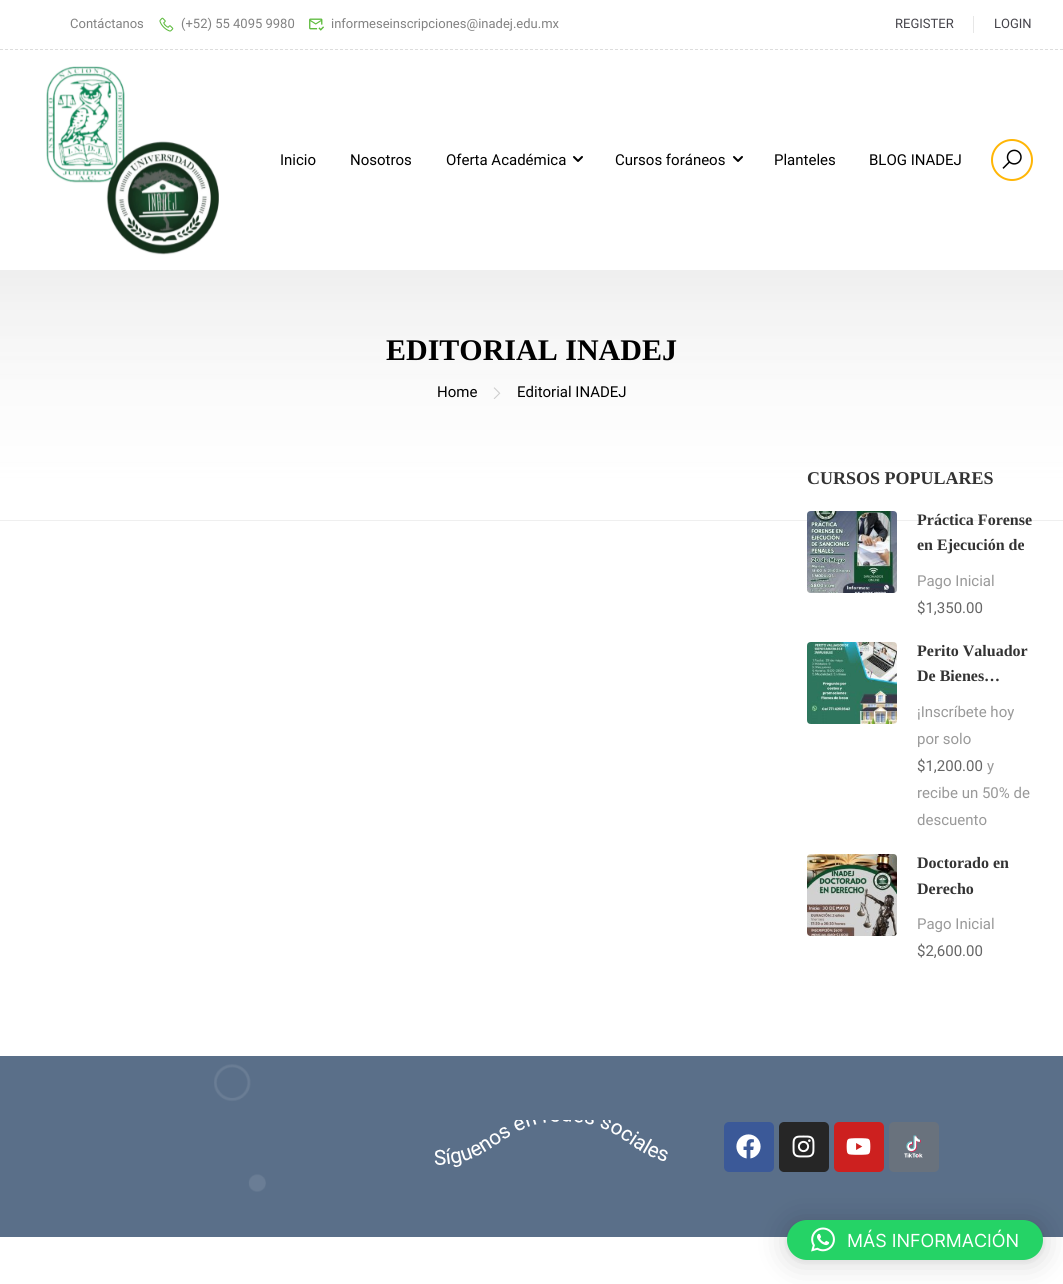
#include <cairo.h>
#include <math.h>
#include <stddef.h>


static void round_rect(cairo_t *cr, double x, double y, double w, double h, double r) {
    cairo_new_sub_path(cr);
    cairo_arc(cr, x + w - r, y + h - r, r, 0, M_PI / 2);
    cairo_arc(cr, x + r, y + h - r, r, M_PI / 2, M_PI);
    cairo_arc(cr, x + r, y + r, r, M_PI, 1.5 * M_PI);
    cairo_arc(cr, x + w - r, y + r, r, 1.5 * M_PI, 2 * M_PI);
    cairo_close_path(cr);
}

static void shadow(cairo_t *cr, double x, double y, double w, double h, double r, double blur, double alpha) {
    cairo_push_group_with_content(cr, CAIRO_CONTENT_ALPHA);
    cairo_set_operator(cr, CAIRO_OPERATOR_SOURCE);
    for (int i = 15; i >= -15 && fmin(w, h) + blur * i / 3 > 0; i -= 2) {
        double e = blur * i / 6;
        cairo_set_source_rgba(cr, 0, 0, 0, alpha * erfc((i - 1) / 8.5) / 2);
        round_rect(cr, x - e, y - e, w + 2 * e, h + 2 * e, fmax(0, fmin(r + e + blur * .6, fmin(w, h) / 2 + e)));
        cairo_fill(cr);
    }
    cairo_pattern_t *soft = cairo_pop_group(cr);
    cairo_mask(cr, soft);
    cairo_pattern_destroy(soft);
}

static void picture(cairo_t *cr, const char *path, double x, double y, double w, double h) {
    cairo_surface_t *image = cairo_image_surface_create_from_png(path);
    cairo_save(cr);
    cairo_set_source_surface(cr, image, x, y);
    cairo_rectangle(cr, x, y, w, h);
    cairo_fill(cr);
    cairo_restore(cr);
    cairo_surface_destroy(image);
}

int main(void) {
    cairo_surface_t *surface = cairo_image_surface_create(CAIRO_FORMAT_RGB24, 1063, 1284);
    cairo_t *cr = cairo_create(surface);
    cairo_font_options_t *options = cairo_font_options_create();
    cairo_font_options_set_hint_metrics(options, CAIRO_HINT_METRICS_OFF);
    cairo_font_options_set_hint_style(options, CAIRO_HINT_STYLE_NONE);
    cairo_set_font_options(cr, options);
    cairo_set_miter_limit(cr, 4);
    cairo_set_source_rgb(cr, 1, 1, 1);
    cairo_paint(cr);
    cairo_new_path(cr);
    cairo_move_to(cr, 0, 49.5);
    cairo_line_to(cr, 1063, 49.5);
    cairo_set_source_rgb(cr, 0.867, 0.867, 0.867);
    cairo_set_line_width(cr, 1);
    cairo_set_dash(cr, (double[]){3, 2}, 2, 0);
    cairo_stroke(cr);
    cairo_select_font_face(cr, "Roboto", CAIRO_FONT_SLANT_NORMAL, CAIRO_FONT_WEIGHT_NORMAL);
    cairo_set_font_size(cr, 13);
    cairo_set_source_rgb(cr, 0.51, 0.51, 0.51);
    cairo_move_to(cr, 70, 28);
    cairo_show_text(cr, "Contáctanos");
    picture(cr, "img1.png", 159, 17, 15, 15);
    cairo_move_to(cr, 181, 28);
    cairo_show_text(cr, "(+52) 55 4095 9980");
    picture(cr, "img2.png", 309, 18, 15, 13);
    cairo_move_to(cr, 331, 28);
    cairo_show_text(cr, "informeseinscripciones@inadej.edu.mx");
    cairo_set_source_rgb(cr, 0.906, 0.906, 0.906);
    cairo_rectangle(cr, 973, 16, 1, 17);
    cairo_fill(cr);
    cairo_set_source_rgb(cr, 0.271, 0.267, 0.294);
    cairo_move_to(cr, 895, 28);
    cairo_show_text(cr, "REGISTER");
    cairo_move_to(cr, 994, 28);
    cairo_show_text(cr, "LOGIN");
    picture(cr, "img3.png", 46, 66, 173, 189);
    cairo_set_font_size(cr, 15);
    cairo_set_source_rgb(cr, 0, 0, 0);
    cairo_move_to(cr, 280, 165);
    cairo_show_text(cr, "Inicio");
    cairo_move_to(cr, 350, 165);
    cairo_show_text(cr, "Nosotros");
    cairo_move_to(cr, 446, 165);
    cairo_show_text(cr, "Oferta Académica");
    picture(cr, "img4.png", 573, 156, 10, 6);
    cairo_move_to(cr, 615, 165);
    cairo_show_text(cr, "Cursos foráneos");
    picture(cr, "img4.png", 733, 156, 10, 6);
    cairo_move_to(cr, 774, 165);
    cairo_show_text(cr, "Planteles");
    cairo_move_to(cr, 869, 165);
    cairo_show_text(cr, "BLOG INADEJ");
    cairo_new_path(cr);
    cairo_arc(cr, 1012, 160, 20, 0, 2 * M_PI);
    cairo_set_source_rgb(cr, 1, 0.714, 0.024);
    cairo_set_line_width(cr, 2);
    cairo_set_dash(cr, NULL, 0, 0);
    cairo_stroke(cr);
    picture(cr, "img5.png", 1002, 149, 20, 20);
    picture(cr, "img6.png", 0, 270, 1063, 251);
    cairo_select_font_face(cr, "Liberation Serif", CAIRO_FONT_SLANT_NORMAL, CAIRO_FONT_WEIGHT_BOLD);
    cairo_set_font_size(cr, 30);
    cairo_set_source_rgb(cr, 0, 0, 0);
    cairo_move_to(cr, 386, 360);
    cairo_show_text(cr, "EDITORIAL INADEJ");
    cairo_select_font_face(cr, "Roboto", CAIRO_FONT_SLANT_NORMAL, CAIRO_FONT_WEIGHT_NORMAL);
    cairo_set_font_size(cr, 15);
    cairo_move_to(cr, 437, 397);
    cairo_show_text(cr, "Home");
    picture(cr, "img7.png", 493, 387, 8, 12);
    cairo_move_to(cr, 517, 397);
    cairo_show_text(cr, "Editorial INADEJ");
    cairo_select_font_face(cr, "Liberation Serif", CAIRO_FONT_SLANT_NORMAL, CAIRO_FONT_WEIGHT_BOLD);
    cairo_set_font_size(cr, 18);
    cairo_set_source_rgb(cr, 0.2, 0.2, 0.2);
    cairo_move_to(cr, 807, 484);
    cairo_show_text(cr, "CURSOS POPULARES");
    picture(cr, "img8.png", 807, 511, 90, 82);
    cairo_set_font_size(cr, 16);
    cairo_move_to(cr, 917, 525);
    cairo_show_text(cr, "Práctica Forense");
    cairo_move_to(cr, 917, 550);
    cairo_show_text(cr, "en Ejecución de");
    cairo_select_font_face(cr, "Roboto", CAIRO_FONT_SLANT_NORMAL, CAIRO_FONT_WEIGHT_NORMAL);
    cairo_set_font_size(cr, 15);
    cairo_set_source_rgb(cr, 0.6, 0.6, 0.6);
    cairo_move_to(cr, 917, 586);
    cairo_show_text(cr, "Pago Inicial");
    cairo_set_source_rgb(cr, 0.4, 0.4, 0.4);
    cairo_move_to(cr, 917, 613);
    cairo_show_text(cr, "$1,350.00");
    picture(cr, "img9.png", 807, 642, 90, 82);
    cairo_select_font_face(cr, "Liberation Serif", CAIRO_FONT_SLANT_NORMAL, CAIRO_FONT_WEIGHT_BOLD);
    cairo_set_font_size(cr, 16);
    cairo_set_source_rgb(cr, 0.2, 0.2, 0.2);
    cairo_move_to(cr, 917, 656);
    cairo_show_text(cr, "Perito Valuador");
    cairo_move_to(cr, 917, 681);
    cairo_show_text(cr, "De Bienes…");
    cairo_select_font_face(cr, "Roboto", CAIRO_FONT_SLANT_NORMAL, CAIRO_FONT_WEIGHT_NORMAL);
    cairo_set_font_size(cr, 15);
    cairo_set_source_rgb(cr, 0.6, 0.6, 0.6);
    cairo_move_to(cr, 917, 717);
    cairo_show_text(cr, "¡Inscríbete hoy");
    cairo_move_to(cr, 917, 744);
    cairo_show_text(cr, "por solo");
    cairo_set_source_rgb(cr, 0.4, 0.4, 0.4);
    cairo_move_to(cr, 917, 771);
    cairo_show_text(cr, "$1,200.00");
    cairo_set_source_rgb(cr, 0.6, 0.6, 0.6);
    cairo_move_to(cr, 987, 771);
    cairo_show_text(cr, "y");
    cairo_move_to(cr, 917, 798);
    cairo_show_text(cr, "recibe un 50% de");
    cairo_move_to(cr, 917, 825);
    cairo_show_text(cr, "descuento");
    picture(cr, "img10.png", 807, 854, 90, 82);
    cairo_select_font_face(cr, "Liberation Serif", CAIRO_FONT_SLANT_NORMAL, CAIRO_FONT_WEIGHT_BOLD);
    cairo_set_font_size(cr, 16);
    cairo_set_source_rgb(cr, 0.2, 0.2, 0.2);
    cairo_move_to(cr, 917, 868);
    cairo_show_text(cr, "Doctorado en");
    cairo_move_to(cr, 917, 894);
    cairo_show_text(cr, "Derecho");
    cairo_select_font_face(cr, "Roboto", CAIRO_FONT_SLANT_NORMAL, CAIRO_FONT_WEIGHT_NORMAL);
    cairo_set_font_size(cr, 15);
    cairo_set_source_rgb(cr, 0.6, 0.6, 0.6);
    cairo_move_to(cr, 917, 929);
    cairo_show_text(cr, "Pago Inicial");
    cairo_set_source_rgb(cr, 0.4, 0.4, 0.4);
    cairo_move_to(cr, 917, 956);
    cairo_show_text(cr, "$2,600.00");
    cairo_set_source_rgb(cr, 0.353, 0.435, 0.537);
    cairo_rectangle(cr, 0, 1056, 1063, 181);
    cairo_fill(cr);
    picture(cr, "img11.png", 214, 1064, 52, 128);
    picture(cr, "img12.png", 434, 1120, 234, 47);
    cairo_set_source_rgb(cr, 0.231, 0.349, 0.596);
    round_rect(cr, 724, 1122, 50, 50, 5);
    cairo_fill(cr);
    picture(cr, "img13.png", 736, 1134, 25, 25);
    cairo_set_source_rgb(cr, 0.149, 0.149, 0.149);
    round_rect(cr, 779, 1122, 50, 50, 5);
    cairo_fill(cr);
    picture(cr, "img14.png", 792, 1135, 23, 23);
    cairo_set_source_rgb(cr, 0.804, 0.125, 0.122);
    round_rect(cr, 834, 1122, 50, 50, 5);
    cairo_fill(cr);
    picture(cr, "img15.png", 846, 1138, 25, 17);
    cairo_set_source_rgb(cr, 0.412, 0.447, 0.49);
    round_rect(cr, 889, 1122, 50, 50, 5);
    cairo_fill(cr);
    picture(cr, "img16.png", 904, 1135, 19, 23);
    cairo_set_source_rgb(cr, 0, 0, 0);
    shadow(cr, 787, 1222, 256, 40, 20, 16, 0.16);
    shadow(cr, 787, 1221, 256, 40, 20, 3, 0.06);
    cairo_set_source_rgb(cr, 0.145, 0.827, 0.4);
    round_rect(cr, 787, 1220, 256, 40, 20);
    cairo_fill(cr);
    picture(cr, "img17.png", 811, 1227, 24, 25);
    cairo_select_font_face(cr, "Inter", CAIRO_FONT_SLANT_NORMAL, CAIRO_FONT_WEIGHT_NORMAL);
    cairo_set_font_size(cr, 18);
    cairo_set_source_rgb(cr, 1, 1, 1);
    cairo_move_to(cr, 847, 1247);
    cairo_show_text(cr, "MÁS INFORMACIÓN");
    cairo_surface_write_to_png(surface, "page.png");
    cairo_font_options_destroy(options);
    cairo_destroy(cr);
    cairo_surface_destroy(surface);
    return 0;
}
